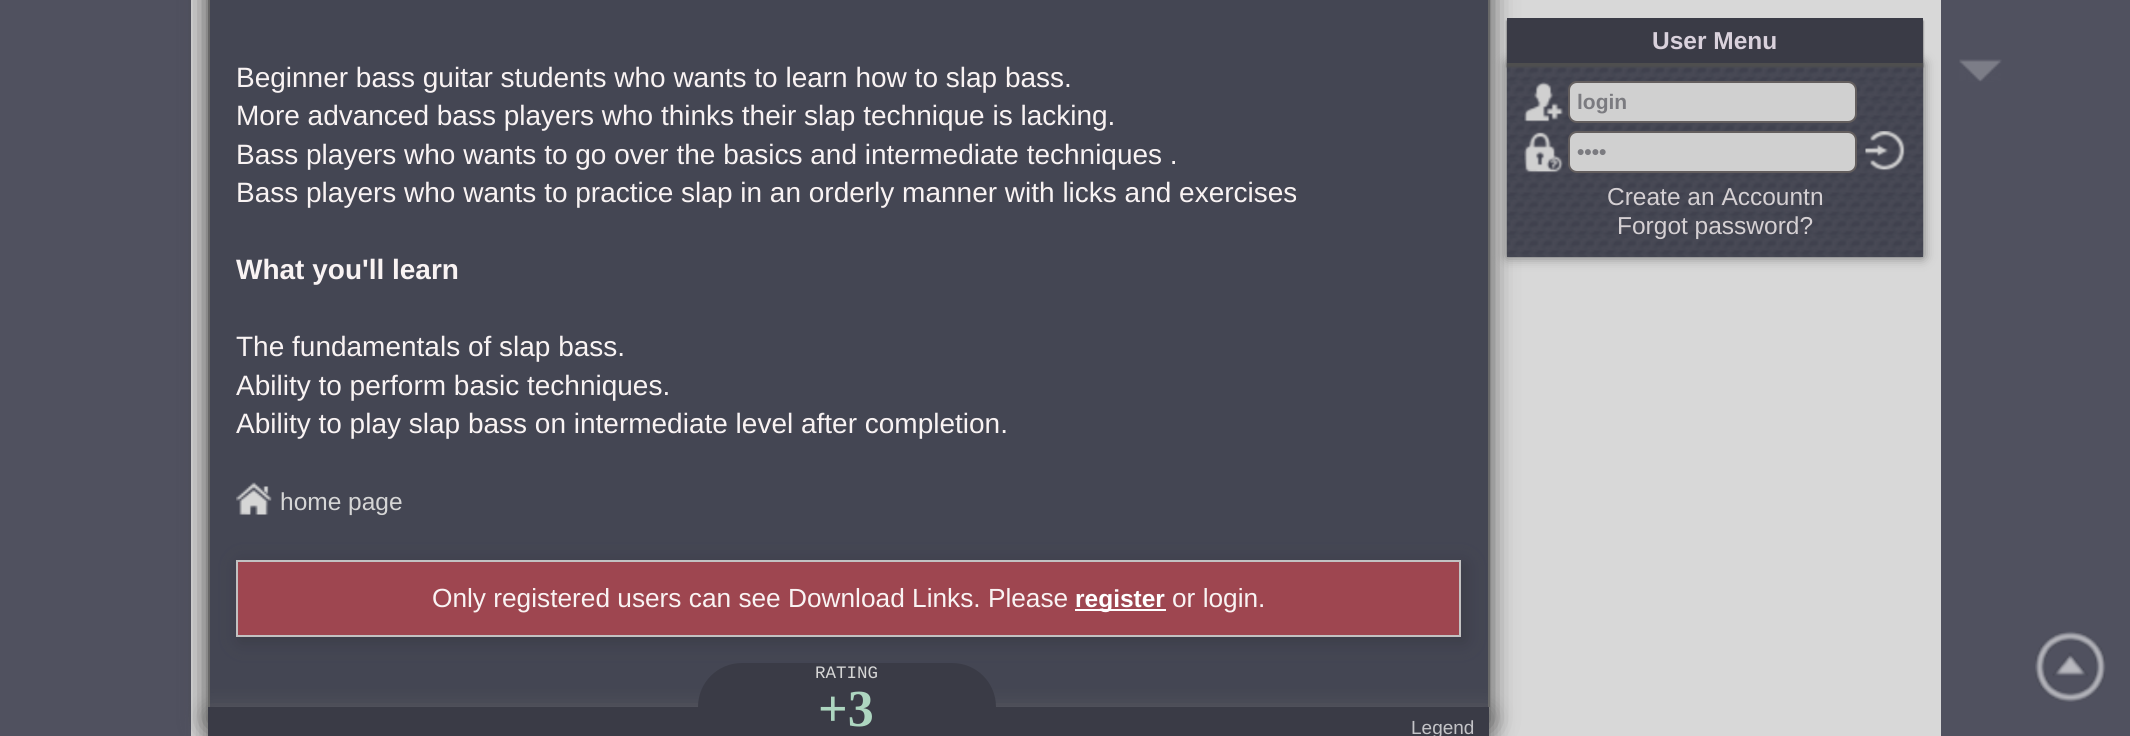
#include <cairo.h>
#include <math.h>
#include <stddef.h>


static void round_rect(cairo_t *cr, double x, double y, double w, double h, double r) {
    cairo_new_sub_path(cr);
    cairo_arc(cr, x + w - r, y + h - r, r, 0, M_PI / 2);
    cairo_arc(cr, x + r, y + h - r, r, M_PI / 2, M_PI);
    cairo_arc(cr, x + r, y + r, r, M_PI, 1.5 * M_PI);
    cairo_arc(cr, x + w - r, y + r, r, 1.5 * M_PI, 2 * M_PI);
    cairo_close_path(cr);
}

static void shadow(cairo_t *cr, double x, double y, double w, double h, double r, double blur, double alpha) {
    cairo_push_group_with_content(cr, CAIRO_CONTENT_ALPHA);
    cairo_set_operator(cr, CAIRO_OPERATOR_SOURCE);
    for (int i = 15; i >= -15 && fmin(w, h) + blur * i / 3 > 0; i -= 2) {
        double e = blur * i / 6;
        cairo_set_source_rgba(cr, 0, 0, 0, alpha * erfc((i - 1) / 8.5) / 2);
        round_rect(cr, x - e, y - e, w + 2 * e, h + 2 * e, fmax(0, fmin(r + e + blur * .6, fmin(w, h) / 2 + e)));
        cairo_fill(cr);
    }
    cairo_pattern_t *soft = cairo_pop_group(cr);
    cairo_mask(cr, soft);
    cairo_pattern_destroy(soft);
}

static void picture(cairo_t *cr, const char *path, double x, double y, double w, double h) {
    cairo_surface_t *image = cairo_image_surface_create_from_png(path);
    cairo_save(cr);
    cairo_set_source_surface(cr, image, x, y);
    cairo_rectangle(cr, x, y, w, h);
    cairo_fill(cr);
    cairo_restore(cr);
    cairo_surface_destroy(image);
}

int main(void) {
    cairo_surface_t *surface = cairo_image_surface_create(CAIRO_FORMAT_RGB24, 2130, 736);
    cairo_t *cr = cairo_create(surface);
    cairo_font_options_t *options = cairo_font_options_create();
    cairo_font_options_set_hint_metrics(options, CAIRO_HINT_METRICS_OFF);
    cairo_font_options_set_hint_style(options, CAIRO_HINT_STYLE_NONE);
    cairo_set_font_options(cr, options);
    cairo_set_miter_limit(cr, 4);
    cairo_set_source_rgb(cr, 0.314, 0.318, 0.373);
    cairo_paint(cr);
    cairo_set_source_rgb(cr, 0.847, 0.847, 0.847);
    cairo_rectangle(cr, 191, 0, 1750, 736);
    cairo_fill(cr);
    cairo_set_source_rgb(cr, 0.227, 0.224, 0.224);
    shadow(cr, 208, -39, 1281, 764, 0, 13, 1);
    cairo_set_source_rgb(cr, 0.267, 0.275, 0.325);
    cairo_rectangle(cr, 210, 0, 1278, 707);
    cairo_fill(cr);
    cairo_set_source_rgb(cr, 0.412, 0.412, 0.412);
    cairo_rectangle(cr, 1488, 0, 2, 707);
    cairo_fill(cr);
    cairo_set_source_rgb(cr, 0.404, 0.404, 0.404);
    cairo_rectangle(cr, 208, 0, 2, 707);
    cairo_fill(cr);
    cairo_select_font_face(cr, "Liberation Sans", CAIRO_FONT_SLANT_NORMAL, CAIRO_FONT_WEIGHT_NORMAL);
    cairo_set_font_size(cr, 28);
    cairo_set_source_rgb(cr, 0.976, 0.953, 0.953);
    cairo_move_to(cr, 236, 87);
    cairo_show_text(cr, "Beginner bass guitar students who wants to learn how to slap bass.");
    cairo_move_to(cr, 236, 125);
    cairo_show_text(cr, "More advanced bass players who thinks their slap technique is lacking.");
    cairo_move_to(cr, 236, 164);
    cairo_show_text(cr, "Bass players who wants to go over the basics and intermediate techniques .");
    cairo_move_to(cr, 236, 202);
    cairo_show_text(cr, "Bass players who wants to practice slap in an orderly manner with licks and exercises");
    cairo_select_font_face(cr, "Liberation Sans", CAIRO_FONT_SLANT_NORMAL, CAIRO_FONT_WEIGHT_BOLD);
    cairo_move_to(cr, 236, 279);
    cairo_show_text(cr, "What you'll learn");
    cairo_select_font_face(cr, "Liberation Sans", CAIRO_FONT_SLANT_NORMAL, CAIRO_FONT_WEIGHT_NORMAL);
    cairo_move_to(cr, 236, 356);
    cairo_show_text(cr, "The fundamentals of slap bass.");
    cairo_move_to(cr, 236, 395);
    cairo_show_text(cr, "Ability to perform basic techniques.");
    cairo_move_to(cr, 236, 433);
    cairo_show_text(cr, "Ability to play slap bass on intermediate level after completion.");
    picture(cr, "img1.png", 236, 482, 36, 33);
    cairo_set_font_size(cr, 24.5);
    cairo_set_source_rgb(cr, 0.839, 0.839, 0.839);
    cairo_move_to(cr, 280, 510);
    cairo_show_text(cr, "home page");
    cairo_set_source_rgb(cr, 0.227, 0.231, 0.275);
    shadow(cr, 240, 564, 1225, 77, 0, 9, 1);
    cairo_set_source_rgb(cr, 0.62, 0.275, 0.314);
    cairo_rectangle(cr, 237, 561, 1223, 75);
    cairo_fill_preserve(cr);
    cairo_set_source_rgb(cr, 0.761, 0.761, 0.761);
    cairo_stroke(cr);
    cairo_set_font_size(cr, 26.25);
    cairo_set_source_rgb(cr, 0.976, 0.953, 0.953);
    cairo_move_to(cr, 432, 607);
    cairo_show_text(cr, "Only registered users can see Download Links. Please");
    cairo_set_source_rgb(cr, 1, 1, 1);
    cairo_rectangle(cr, 1075, 609, 91, 2);
    cairo_fill(cr);
    cairo_select_font_face(cr, "Liberation Sans", CAIRO_FONT_SLANT_NORMAL, CAIRO_FONT_WEIGHT_BOLD);
    cairo_set_font_size(cr, 24.5);
    cairo_move_to(cr, 1075, 607);
    cairo_show_text(cr, "register");
    cairo_select_font_face(cr, "Liberation Sans", CAIRO_FONT_SLANT_NORMAL, CAIRO_FONT_WEIGHT_NORMAL);
    cairo_set_font_size(cr, 26.25);
    cairo_set_source_rgb(cr, 0.976, 0.953, 0.953);
    cairo_move_to(cr, 1172, 607);
    cairo_show_text(cr, "or login.");
    cairo_set_source_rgb(cr, 0.412, 0.412, 0.412);
    shadow(cr, 208, 712, 1281, 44, 0, 10.5, 1);
    cairo_set_source_rgb(cr, 0.227, 0.231, 0.275);
    cairo_new_path(cr);
    cairo_move_to(cr, 742, 663);
    cairo_line_to(cr, 952, 663);
    cairo_curve_to(cr, 976.5, 663, 996, 682.5, 996, 707);
    cairo_line_to(cr, 698, 707);
    cairo_curve_to(cr, 698, 682.5, 717.5, 663, 742, 663);
    cairo_close_path(cr);
    cairo_fill(cr);
    cairo_select_font_face(cr, "Liberation Mono", CAIRO_FONT_SLANT_NORMAL, CAIRO_FONT_WEIGHT_NORMAL);
    cairo_set_font_size(cr, 17.5);
    cairo_set_source_rgb(cr, 0.839, 0.839, 0.839);
    cairo_move_to(cr, 815, 678);
    cairo_show_text(cr, "RATING");
    cairo_set_source_rgb(cr, 0.227, 0.231, 0.275);
    cairo_rectangle(cr, 208, 707, 1281, 29);
    cairo_fill(cr);
    cairo_select_font_face(cr, "Liberation Serif", CAIRO_FONT_SLANT_NORMAL, CAIRO_FONT_WEIGHT_BOLD);
    cairo_set_font_size(cr, 52);
    cairo_set_source_rgb(cr, 0.678, 0.839, 0.753);
    cairo_move_to(cr, 818, 726);
    cairo_show_text(cr, "+3");
    cairo_select_font_face(cr, "Liberation Sans", CAIRO_FONT_SLANT_NORMAL, CAIRO_FONT_WEIGHT_NORMAL);
    cairo_set_font_size(cr, 19);
    cairo_set_source_rgb(cr, 0.769, 0.769, 0.784);
    cairo_move_to(cr, 1411, 734);
    cairo_show_text(cr, "Legend");
    cairo_set_source_rgb(cr, 0.443, 0.443, 0.443);
    shadow(cr, 1507, 63, 416, 194, 0, 6, 1);
    cairo_set_source_rgb(cr, 0.29, 0.278, 0.341);
    cairo_rectangle(cr, 1507, 63, 416, 194);
    cairo_fill(cr);
    picture(cr, "img2.png", 1506, 63, 418, 195);
    cairo_set_source_rgb(cr, 0.306, 0.306, 0.306);
    shadow(cr, 1507, 21, 416, 46, 0, 1, 1);
    cairo_set_source_rgb(cr, 0.227, 0.231, 0.275);
    cairo_rectangle(cr, 1507, 18, 416, 45);
    cairo_fill(cr);
    cairo_select_font_face(cr, "Liberation Sans", CAIRO_FONT_SLANT_NORMAL, CAIRO_FONT_WEIGHT_BOLD);
    cairo_set_font_size(cr, 24.5);
    cairo_set_source_rgb(cr, 0.851, 0.82, 0.863);
    cairo_move_to(cr, 1652, 49);
    cairo_show_text(cr, "User Menu");
    picture(cr, "img3.png", 1524, 82, 40, 40);
    cairo_set_source_rgb(cr, 0.816, 0.816, 0.816);
    round_rect(cr, 1569, 82, 287, 40, 8);
    cairo_fill_preserve(cr);
    cairo_set_source_rgb(cr, 0.388, 0.369, 0.369);
    cairo_stroke(cr);
    cairo_set_font_size(cr, 21);
    cairo_set_source_rgb(cr, 0.482, 0.482, 0.502);
    cairo_move_to(cr, 1577, 109);
    cairo_show_text(cr, "login");
    picture(cr, "img4.png", 1524, 132, 39, 41);
    cairo_set_source_rgb(cr, 0.816, 0.816, 0.816);
    round_rect(cr, 1569, 132, 287, 40, 8);
    cairo_fill_preserve(cr);
    cairo_set_source_rgb(cr, 0.388, 0.369, 0.369);
    cairo_stroke(cr);
    cairo_set_source_rgb(cr, 0.482, 0.482, 0.502);
    cairo_move_to(cr, 1577, 159);
    cairo_show_text(cr, "••••");
    picture(cr, "img5.png", 1865, 131, 40, 40);
    cairo_select_font_face(cr, "Liberation Sans", CAIRO_FONT_SLANT_NORMAL, CAIRO_FONT_WEIGHT_NORMAL);
    cairo_set_font_size(cr, 24.5);
    cairo_set_source_rgb(cr, 0.835, 0.816, 0.827);
    cairo_move_to(cr, 1607, 205);
    cairo_show_text(cr, "Create an Accountn");
    cairo_move_to(cr, 1617, 234);
    cairo_show_text(cr, "Forgot password?");
    picture(cr, "img6.png", 1959, 59, 43, 23);
    picture(cr, "img7.png", 2035, 631, 71, 71);
    cairo_surface_write_to_png(surface, "page.png");
    cairo_font_options_destroy(options);
    cairo_destroy(cr);
    cairo_surface_destroy(surface);
    return 0;
}
